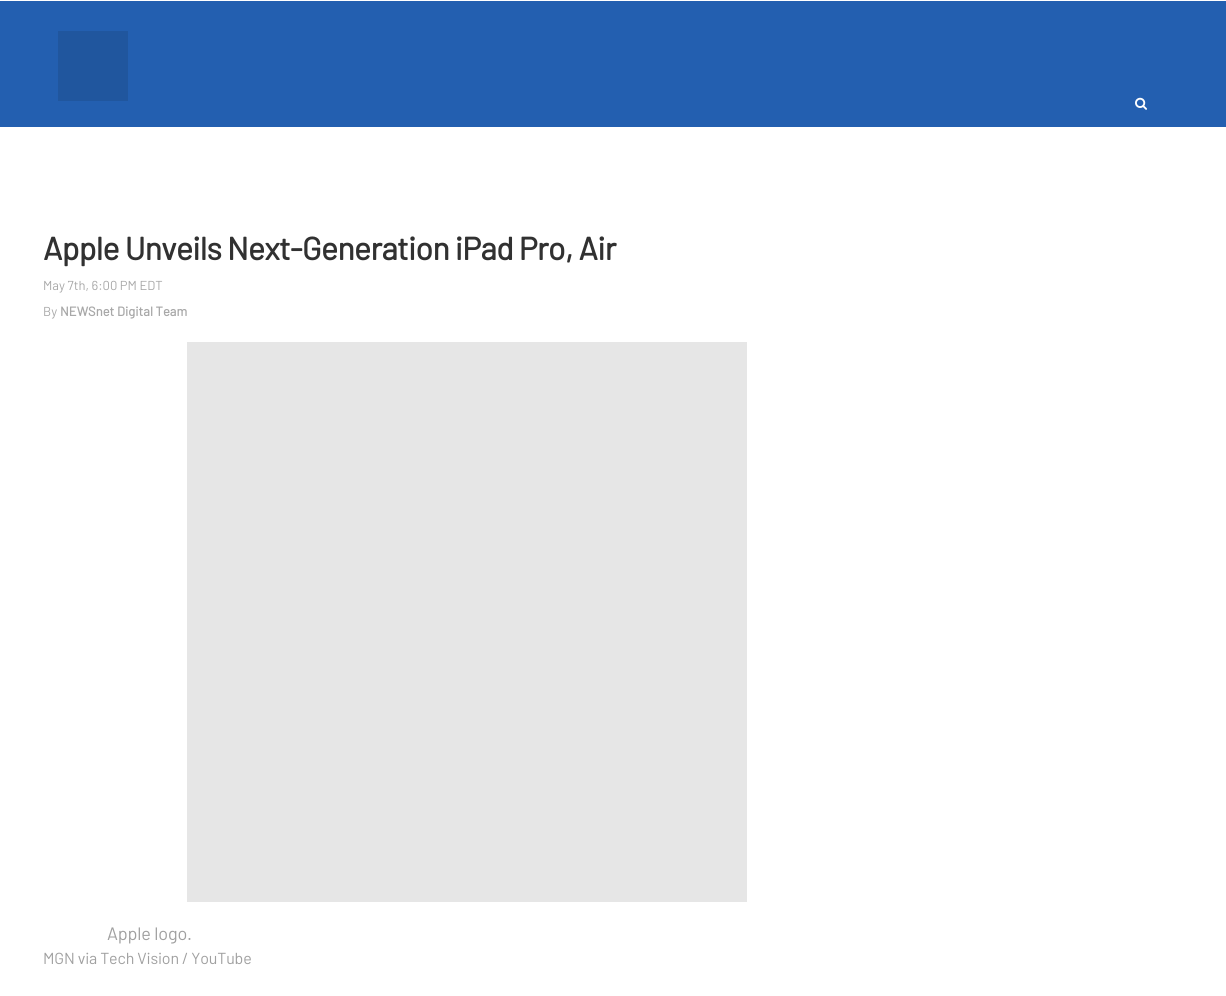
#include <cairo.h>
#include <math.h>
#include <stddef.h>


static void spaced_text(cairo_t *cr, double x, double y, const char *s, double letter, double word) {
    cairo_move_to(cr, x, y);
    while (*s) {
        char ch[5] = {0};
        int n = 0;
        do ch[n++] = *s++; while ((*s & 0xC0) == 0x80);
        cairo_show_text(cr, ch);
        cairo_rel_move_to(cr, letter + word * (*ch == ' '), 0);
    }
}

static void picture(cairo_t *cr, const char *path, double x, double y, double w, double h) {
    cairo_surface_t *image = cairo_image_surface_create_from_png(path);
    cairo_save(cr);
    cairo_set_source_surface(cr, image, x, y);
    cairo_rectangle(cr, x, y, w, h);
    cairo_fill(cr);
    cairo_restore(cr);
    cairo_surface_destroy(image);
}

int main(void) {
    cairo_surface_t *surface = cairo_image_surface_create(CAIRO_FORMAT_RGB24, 1226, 996);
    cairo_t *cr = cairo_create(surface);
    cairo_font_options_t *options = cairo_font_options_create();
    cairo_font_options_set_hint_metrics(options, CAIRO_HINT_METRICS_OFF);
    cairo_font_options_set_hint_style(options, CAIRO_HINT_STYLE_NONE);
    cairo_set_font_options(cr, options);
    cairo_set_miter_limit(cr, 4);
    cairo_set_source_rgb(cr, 1, 1, 1);
    cairo_paint(cr);
    cairo_set_source_rgb(cr, 0.137, 0.373, 0.69);
    cairo_rectangle(cr, 0, 1, 1226, 126);
    cairo_fill(cr);
    cairo_set_source_rgb(cr, 0.125, 0.337, 0.62);
    cairo_rectangle(cr, 58, 31, 70, 70);
    cairo_fill(cr);
    picture(cr, "img1.png", 1135, 97, 12, 13);
    cairo_select_font_face(cr, "Barlow", CAIRO_FONT_SLANT_NORMAL, CAIRO_FONT_WEIGHT_BOLD);
    cairo_set_font_size(cr, 32);
    cairo_set_source_rgb(cr, 0.192, 0.192, 0.192);
    spaced_text(cr, 43, 260, "Apple Unveils Next-Generation iPad Pro, Air", -0.65, 0);
    cairo_select_font_face(cr, "Barlow", CAIRO_FONT_SLANT_NORMAL, CAIRO_FONT_WEIGHT_NORMAL);
    cairo_set_font_size(cr, 13);
    cairo_set_source_rgb(cr, 0.659, 0.659, 0.659);
    cairo_move_to(cr, 43, 290);
    cairo_show_text(cr, "May 7th, 6:00 PM EDT");
    cairo_move_to(cr, 43, 316);
    cairo_show_text(cr, "By");
    cairo_select_font_face(cr, "Barlow", CAIRO_FONT_SLANT_NORMAL, CAIRO_FONT_WEIGHT_BOLD);
    cairo_move_to(cr, 60, 316);
    cairo_show_text(cr, "NEWSnet Digital Team");
    cairo_set_source_rgb(cr, 0.902, 0.902, 0.902);
    cairo_rectangle(cr, 187, 342, 560, 560);
    cairo_fill(cr);
    cairo_select_font_face(cr, "Barlow", CAIRO_FONT_SLANT_NORMAL, CAIRO_FONT_WEIGHT_NORMAL);
    cairo_set_font_size(cr, 18);
    cairo_set_source_rgb(cr, 0.627, 0.627, 0.627);
    spaced_text(cr, 107, 940, "Apple logo.", -0.15, 0);
    cairo_set_font_size(cr, 16);
    spaced_text(cr, 43, 964, "MGN via Tech Vision / YouTube", -0.15, 0);
    cairo_surface_write_to_png(surface, "page.png");
    cairo_font_options_destroy(options);
    cairo_destroy(cr);
    cairo_surface_destroy(surface);
    return 0;
}
